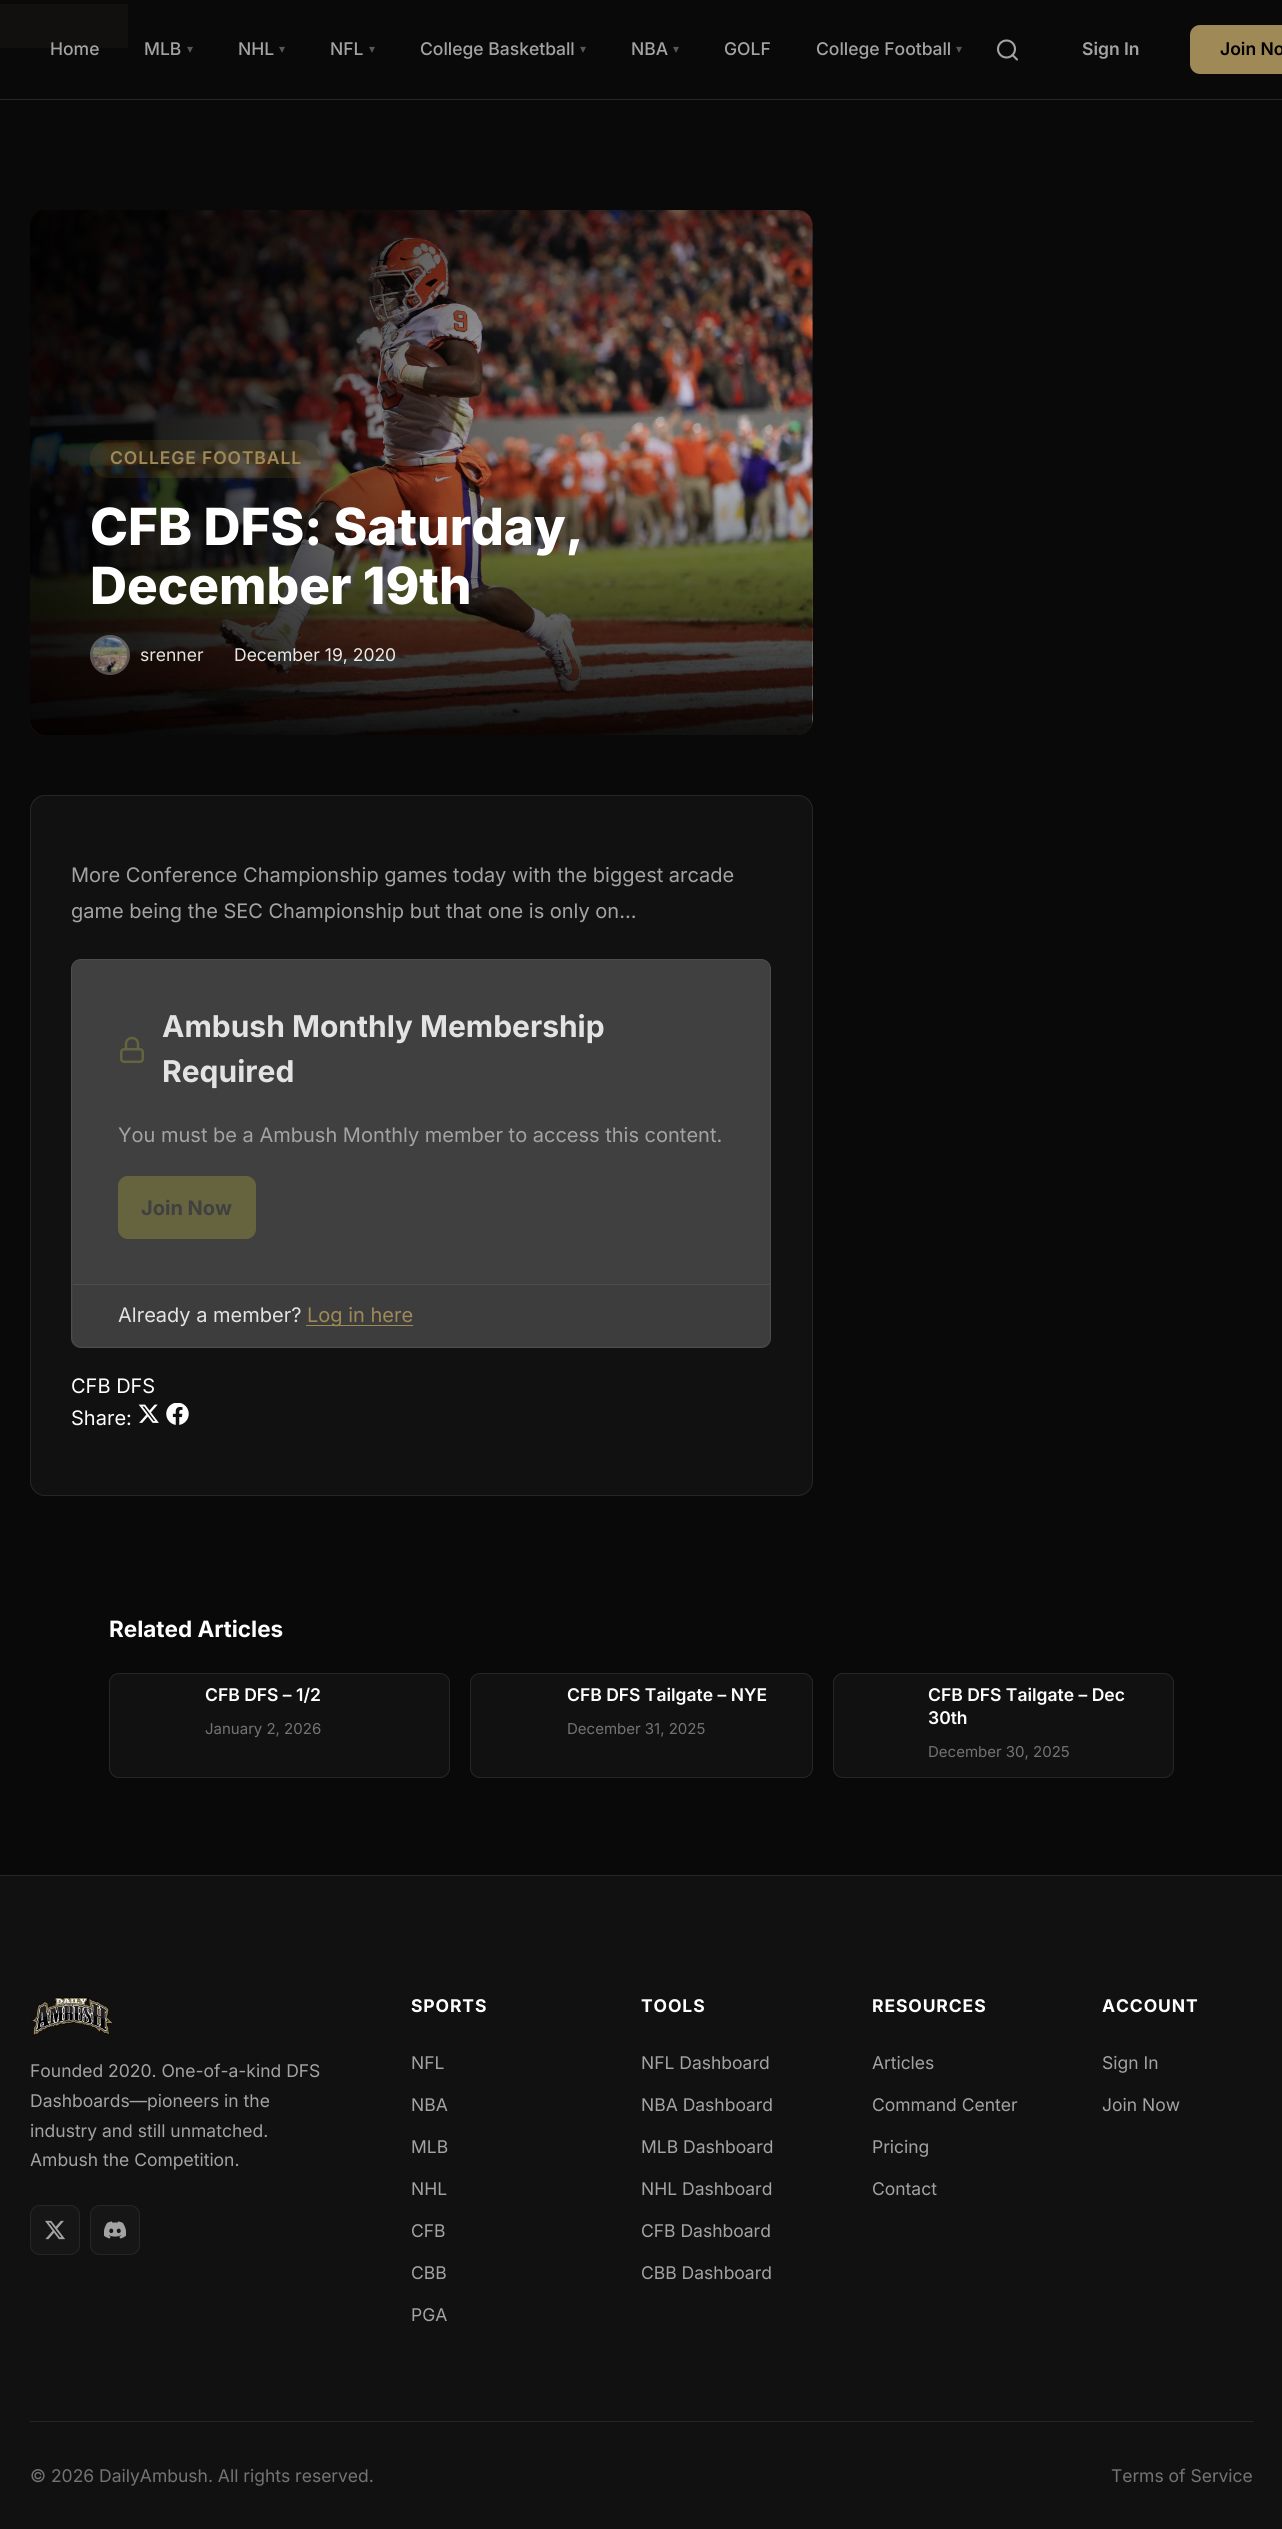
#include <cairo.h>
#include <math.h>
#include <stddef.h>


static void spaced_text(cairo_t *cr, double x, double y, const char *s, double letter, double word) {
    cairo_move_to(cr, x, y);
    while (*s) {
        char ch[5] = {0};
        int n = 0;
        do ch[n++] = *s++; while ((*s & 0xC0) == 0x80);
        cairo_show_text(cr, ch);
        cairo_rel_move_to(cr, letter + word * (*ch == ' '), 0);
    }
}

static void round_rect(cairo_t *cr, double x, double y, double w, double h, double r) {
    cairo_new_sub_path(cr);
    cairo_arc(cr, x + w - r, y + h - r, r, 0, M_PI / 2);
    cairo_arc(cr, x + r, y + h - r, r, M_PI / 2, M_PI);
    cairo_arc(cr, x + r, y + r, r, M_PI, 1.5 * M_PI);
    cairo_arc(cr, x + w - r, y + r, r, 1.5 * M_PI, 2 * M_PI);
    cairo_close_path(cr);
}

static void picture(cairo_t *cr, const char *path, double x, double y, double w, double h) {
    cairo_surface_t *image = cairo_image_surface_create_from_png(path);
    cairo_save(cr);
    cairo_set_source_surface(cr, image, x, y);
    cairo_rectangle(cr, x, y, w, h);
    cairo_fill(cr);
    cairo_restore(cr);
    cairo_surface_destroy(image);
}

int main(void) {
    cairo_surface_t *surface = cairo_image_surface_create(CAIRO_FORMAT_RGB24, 1282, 2529);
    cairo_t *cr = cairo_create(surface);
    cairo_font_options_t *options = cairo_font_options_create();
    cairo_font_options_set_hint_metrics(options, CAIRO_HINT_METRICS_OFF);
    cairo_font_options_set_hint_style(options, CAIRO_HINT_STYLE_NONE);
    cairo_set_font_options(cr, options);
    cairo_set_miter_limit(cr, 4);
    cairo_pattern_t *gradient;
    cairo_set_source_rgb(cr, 0.039, 0.039, 0.039);
    cairo_paint(cr);
    cairo_set_source_rgb(cr, 0.067, 0.063, 0.055);
    cairo_rectangle(cr, 0, 4, 128, 44);
    cairo_fill(cr);
    cairo_set_source_rgb(cr, 0.149, 0.149, 0.149);
    cairo_rectangle(cr, 0, 99, 1282, 1);
    cairo_fill(cr);
    cairo_select_font_face(cr, "Inter Medium", CAIRO_FONT_SLANT_NORMAL, CAIRO_FONT_WEIGHT_NORMAL);
    cairo_set_font_size(cr, 17.5);
    cairo_set_source_rgb(cr, 0.639, 0.639, 0.639);
    cairo_move_to(cr, 50, 55);
    cairo_show_text(cr, "Home");
    cairo_move_to(cr, 144, 55);
    cairo_show_text(cr, "MLB");
    cairo_select_font_face(cr, "DejaVu Sans", CAIRO_FONT_SLANT_NORMAL, CAIRO_FONT_WEIGHT_NORMAL);
    cairo_set_font_size(cr, 12);
    cairo_set_source_rgb(cr, 0.341, 0.341, 0.341);
    cairo_move_to(cr, 187, 53);
    cairo_show_text(cr, "▾");
    cairo_select_font_face(cr, "Inter Medium", CAIRO_FONT_SLANT_NORMAL, CAIRO_FONT_WEIGHT_NORMAL);
    cairo_set_font_size(cr, 17.5);
    cairo_set_source_rgb(cr, 0.639, 0.639, 0.639);
    cairo_move_to(cr, 238, 55);
    cairo_show_text(cr, "NHL");
    cairo_select_font_face(cr, "DejaVu Sans", CAIRO_FONT_SLANT_NORMAL, CAIRO_FONT_WEIGHT_NORMAL);
    cairo_set_font_size(cr, 12);
    cairo_set_source_rgb(cr, 0.341, 0.341, 0.341);
    cairo_move_to(cr, 279, 53);
    cairo_show_text(cr, "▾");
    cairo_select_font_face(cr, "Inter Medium", CAIRO_FONT_SLANT_NORMAL, CAIRO_FONT_WEIGHT_NORMAL);
    cairo_set_font_size(cr, 17.5);
    cairo_set_source_rgb(cr, 0.639, 0.639, 0.639);
    cairo_move_to(cr, 330, 55);
    cairo_show_text(cr, "NFL");
    cairo_select_font_face(cr, "DejaVu Sans", CAIRO_FONT_SLANT_NORMAL, CAIRO_FONT_WEIGHT_NORMAL);
    cairo_set_font_size(cr, 12);
    cairo_set_source_rgb(cr, 0.341, 0.341, 0.341);
    cairo_move_to(cr, 369, 53);
    cairo_show_text(cr, "▾");
    cairo_select_font_face(cr, "Inter Medium", CAIRO_FONT_SLANT_NORMAL, CAIRO_FONT_WEIGHT_NORMAL);
    cairo_set_font_size(cr, 17.5);
    cairo_set_source_rgb(cr, 0.639, 0.639, 0.639);
    cairo_move_to(cr, 420, 55);
    cairo_show_text(cr, "College Basketball");
    cairo_select_font_face(cr, "DejaVu Sans", CAIRO_FONT_SLANT_NORMAL, CAIRO_FONT_WEIGHT_NORMAL);
    cairo_set_font_size(cr, 12);
    cairo_set_source_rgb(cr, 0.341, 0.341, 0.341);
    cairo_move_to(cr, 580, 53);
    cairo_show_text(cr, "▾");
    cairo_select_font_face(cr, "Inter Medium", CAIRO_FONT_SLANT_NORMAL, CAIRO_FONT_WEIGHT_NORMAL);
    cairo_set_font_size(cr, 17.5);
    cairo_set_source_rgb(cr, 0.639, 0.639, 0.639);
    cairo_move_to(cr, 631, 55);
    cairo_show_text(cr, "NBA");
    cairo_select_font_face(cr, "DejaVu Sans", CAIRO_FONT_SLANT_NORMAL, CAIRO_FONT_WEIGHT_NORMAL);
    cairo_set_font_size(cr, 12);
    cairo_set_source_rgb(cr, 0.341, 0.341, 0.341);
    cairo_move_to(cr, 673, 53);
    cairo_show_text(cr, "▾");
    cairo_select_font_face(cr, "Inter Medium", CAIRO_FONT_SLANT_NORMAL, CAIRO_FONT_WEIGHT_NORMAL);
    cairo_set_font_size(cr, 17.5);
    cairo_set_source_rgb(cr, 0.639, 0.639, 0.639);
    cairo_move_to(cr, 724, 55);
    cairo_show_text(cr, "GOLF");
    cairo_move_to(cr, 816, 55);
    cairo_show_text(cr, "College Football");
    cairo_select_font_face(cr, "DejaVu Sans", CAIRO_FONT_SLANT_NORMAL, CAIRO_FONT_WEIGHT_NORMAL);
    cairo_set_font_size(cr, 12);
    cairo_set_source_rgb(cr, 0.341, 0.341, 0.341);
    cairo_move_to(cr, 956, 53);
    cairo_show_text(cr, "▾");
    cairo_new_path(cr);
    cairo_arc(cr, 1006.5, 49, 8.5, 0, 2 * M_PI);
    cairo_set_source_rgb(cr, 0.639, 0.639, 0.639);
    cairo_set_line_width(cr, 2.1);
    cairo_stroke(cr);
    cairo_new_path(cr);
    cairo_move_to(cr, 1017, 59.5);
    cairo_line_to(cr, 1012.5, 55);
    cairo_set_line_cap(cr, CAIRO_LINE_CAP_ROUND);
    cairo_set_line_join(cr, CAIRO_LINE_JOIN_ROUND);
    cairo_stroke(cr);
    cairo_select_font_face(cr, "Inter SemiBold", CAIRO_FONT_SLANT_NORMAL, CAIRO_FONT_WEIGHT_NORMAL);
    cairo_set_font_size(cr, 17.5);
    cairo_move_to(cr, 1082, 55);
    cairo_show_text(cr, "Sign In");
    cairo_set_source_rgb(cr, 0.624, 0.537, 0.337);
    round_rect(cr, 1190, 25, 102, 49, 10);
    cairo_fill(cr);
    cairo_set_source_rgb(cr, 0, 0, 0);
    cairo_move_to(cr, 1220, 55);
    cairo_show_text(cr, "Join No");
    picture(cr, "img1.png", 30, 210, 783, 525);
    gradient = cairo_pattern_create_linear(94, 146, 748, 799);
    cairo_pattern_add_color_stop_rgba(gradient, 0, 0, 0, 0, 0.85);
    cairo_pattern_add_color_stop_rgba(gradient, 0.3, 0, 0, 0, 0.6);
    cairo_pattern_add_color_stop_rgba(gradient, 0.6, 0, 0, 0, 0.2);
    cairo_pattern_add_color_stop_rgba(gradient, 1, 0, 0, 0, 0);
    cairo_set_source(cr, gradient);
    cairo_pattern_destroy(gradient);
    cairo_new_path(cr);
    cairo_move_to(cr, 802, 210);
    cairo_line_to(cr, 41, 210);
    cairo_curve_to(cr, 35, 212, 30, 218, 30, 225);
    cairo_line_to(cr, 30, 720);
    cairo_curve_to(cr, 30, 728, 37, 735, 45, 735);
    cairo_line_to(cr, 798, 735);
    cairo_curve_to(cr, 805, 735, 811, 730, 812, 724);
    cairo_line_to(cr, 812, 221);
    cairo_curve_to(cr, 811, 216, 807, 212, 802, 210);
    cairo_close_path(cr);
    cairo_fill(cr);
    gradient = cairo_pattern_create_linear(421, 735, 421, 420);
    cairo_pattern_add_color_stop_rgba(gradient, 0, 0, 0, 0, 0.9);
    cairo_pattern_add_color_stop_rgba(gradient, 1, 0, 0, 0, 0);
    cairo_set_source(cr, gradient);
    cairo_pattern_destroy(gradient);
    cairo_new_path(cr);
    cairo_move_to(cr, 30, 420);
    cairo_line_to(cr, 30, 720);
    cairo_curve_to(cr, 30, 728, 37, 735, 45, 735);
    cairo_line_to(cr, 798, 735);
    cairo_curve_to(cr, 805, 735, 811, 730, 812, 724);
    cairo_line_to(cr, 812, 420);
    cairo_close_path(cr);
    cairo_fill(cr);
    gradient = cairo_pattern_create_linear(-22, 354, 630, 591);
    cairo_pattern_add_color_stop_rgba(gradient, 0, 0, 0, 0, 0.7);
    cairo_pattern_add_color_stop_rgba(gradient, 0.7, 0, 0, 0, 0);
    cairo_set_source(cr, gradient);
    cairo_pattern_destroy(gradient);
    cairo_new_path(cr);
    cairo_move_to(cr, 578, 210);
    cairo_line_to(cr, 41, 210);
    cairo_curve_to(cr, 35, 212, 30, 218, 30, 225);
    cairo_line_to(cr, 30, 720);
    cairo_curve_to(cr, 30, 728, 37, 735, 45, 735);
    cairo_line_to(cr, 578, 735);
    cairo_close_path(cr);
    cairo_fill(cr);
    cairo_set_source_rgba(cr, 0.788, 0.635, 0.153, 0.1);
    round_rect(cr, 90, 440, 231, 38, 19);
    cairo_fill(cr);
    cairo_set_source_rgb(cr, 0.624, 0.537, 0.337);
    spaced_text(cr, 110, 464, "COLLEGE FOOTBALL", 0.9, 0);
    cairo_select_font_face(cr, "Inter ExtraBold", CAIRO_FONT_SLANT_NORMAL, CAIRO_FONT_WEIGHT_NORMAL);
    cairo_set_font_size(cr, 51.25);
    cairo_set_source_rgb(cr, 1, 1, 1);
    cairo_move_to(cr, 90, 545);
    cairo_show_text(cr, "CFB DFS: Saturday,");
    cairo_move_to(cr, 90, 604);
    cairo_show_text(cr, "December 19th");
    cairo_new_path(cr);
    cairo_arc(cr, 110, 655, 18.5, 0, 2 * M_PI);
    cairo_set_source_rgba(cr, 1, 1, 1, 0.3);
    cairo_set_line_width(cr, 3);
    cairo_set_line_cap(cr, CAIRO_LINE_CAP_BUTT);
    cairo_set_line_join(cr, CAIRO_LINE_JOIN_MITER);
    cairo_stroke(cr);
    picture(cr, "img2.png", 92, 637, 36, 36);
    cairo_select_font_face(cr, "Inter", CAIRO_FONT_SLANT_NORMAL, CAIRO_FONT_WEIGHT_NORMAL);
    cairo_set_font_size(cr, 17.5);
    cairo_set_source_rgb(cr, 0.89, 0.89, 0.89);
    cairo_move_to(cr, 140, 661);
    cairo_show_text(cr, "srenner");
    cairo_set_source_rgb(cr, 0.918, 0.91, 0.91);
    cairo_move_to(cr, 234, 661);
    cairo_show_text(cr, "December 19, 2020");
    cairo_set_source_rgb(cr, 0.067, 0.067, 0.067);
    round_rect(cr, 30.5, 795.5, 782, 700, 14.5);
    cairo_fill_preserve(cr);
    cairo_set_source_rgb(cr, 0.149, 0.149, 0.149);
    cairo_set_line_width(cr, 1);
    cairo_stroke(cr);
    cairo_set_font_size(cr, 20);
    cairo_set_source_rgb(cr, 0.639, 0.639, 0.639);
    cairo_move_to(cr, 71, 882);
    cairo_show_text(cr, "More Conference Championship games today with the biggest arcade");
    cairo_move_to(cr, 71, 918);
    cairo_show_text(cr, "game being the SEC Championship but that one is only on...");
    cairo_set_source_rgb(cr, 0.251, 0.251, 0.251);
    round_rect(cr, 71.5, 959.5, 699, 388, 9.5);
    cairo_fill_preserve(cr);
    cairo_set_source_rgb(cr, 0.302, 0.302, 0.302);
    cairo_stroke(cr);
    cairo_select_font_face(cr, "Inter", CAIRO_FONT_SLANT_NORMAL, CAIRO_FONT_WEIGHT_BOLD);
    cairo_set_font_size(cr, 30);
    cairo_set_source_rgb(cr, 0.89, 0.89, 0.89);
    cairo_move_to(cr, 162, 1037);
    cairo_show_text(cr, "Ambush Monthly Membership");
    round_rect(cr, 121.25, 1049.25, 21.5, 12.5, 2.75);
    cairo_set_source_rgb(cr, 0.396, 0.392, 0.243);
    cairo_set_line_width(cr, 2.5);
    cairo_stroke(cr);
    cairo_new_path(cr);
    cairo_move_to(cr, 126, 1049);
    cairo_line_to(cr, 126, 1044);
    cairo_curve_to(cr, 126, 1040.5, 128.5, 1038, 132, 1038);
    cairo_curve_to(cr, 135.5, 1038, 138, 1040.5, 138, 1044);
    cairo_line_to(cr, 138, 1049);
    cairo_set_line_width(cr, 2.4);
    cairo_set_line_cap(cr, CAIRO_LINE_CAP_ROUND);
    cairo_set_line_join(cr, CAIRO_LINE_JOIN_ROUND);
    cairo_stroke(cr);
    cairo_set_source_rgb(cr, 0.89, 0.89, 0.89);
    cairo_move_to(cr, 162, 1082);
    cairo_show_text(cr, "Required");
    cairo_select_font_face(cr, "Inter", CAIRO_FONT_SLANT_NORMAL, CAIRO_FONT_WEIGHT_NORMAL);
    cairo_set_font_size(cr, 20);
    cairo_set_source_rgb(cr, 0.639, 0.639, 0.639);
    cairo_move_to(cr, 118, 1142);
    cairo_show_text(cr, "You must be a Ambush Monthly member to access this content.");
    cairo_set_source_rgb(cr, 0.396, 0.392, 0.243);
    round_rect(cr, 118.5, 1176.5, 137, 62, 9.5);
    cairo_fill_preserve(cr);
    cairo_set_line_width(cr, 1);
    cairo_set_line_cap(cr, CAIRO_LINE_CAP_BUTT);
    cairo_set_line_join(cr, CAIRO_LINE_JOIN_MITER);
    cairo_stroke(cr);
    cairo_select_font_face(cr, "Inter", CAIRO_FONT_SLANT_NORMAL, CAIRO_FONT_WEIGHT_BOLD);
    cairo_set_source_rgb(cr, 0.251, 0.251, 0.251);
    cairo_move_to(cr, 141, 1215);
    cairo_show_text(cr, "Join Now");
    cairo_set_source_rgb(cr, 0.239, 0.239, 0.239);
    cairo_new_path(cr);
    cairo_move_to(cr, 73, 1284);
    cairo_line_to(cr, 770, 1284);
    cairo_line_to(cr, 770, 1337);
    cairo_curve_to(cr, 770, 1342, 766, 1346, 761, 1346);
    cairo_line_to(cr, 82, 1346);
    cairo_curve_to(cr, 77, 1346, 73, 1342, 73, 1337);
    cairo_close_path(cr);
    cairo_fill(cr);
    cairo_set_source_rgb(cr, 0.302, 0.302, 0.302);
    cairo_rectangle(cr, 73, 1284, 697, 1);
    cairo_fill(cr);
    cairo_select_font_face(cr, "Inter", CAIRO_FONT_SLANT_NORMAL, CAIRO_FONT_WEIGHT_NORMAL);
    cairo_set_source_rgb(cr, 0.89, 0.89, 0.89);
    cairo_move_to(cr, 118, 1322);
    cairo_show_text(cr, "Already a member?");
    cairo_set_source_rgb(cr, 0.624, 0.537, 0.337);
    cairo_rectangle(cr, 306, 1325, 107, 1);
    cairo_fill(cr);
    cairo_move_to(cr, 307, 1322);
    cairo_show_text(cr, "Log in here");
    cairo_set_source_rgb(cr, 1, 1, 1);
    cairo_move_to(cr, 71, 1393);
    cairo_show_text(cr, "CFB DFS");
    cairo_move_to(cr, 71, 1425);
    cairo_show_text(cr, "Share:");
    picture(cr, "img3.png", 138, 1404, 21, 19);
    picture(cr, "img4.png", 166, 1403, 23, 22);
    cairo_select_font_face(cr, "Inter", CAIRO_FONT_SLANT_NORMAL, CAIRO_FONT_WEIGHT_BOLD);
    cairo_set_font_size(cr, 22.5);
    cairo_move_to(cr, 109, 1637);
    cairo_show_text(cr, "Related Articles");
    cairo_set_source_rgb(cr, 0.067, 0.067, 0.067);
    round_rect(cr, 109.5, 1673.5, 340, 104, 9.5);
    cairo_fill_preserve(cr);
    cairo_set_source_rgb(cr, 0.149, 0.149, 0.149);
    cairo_stroke(cr);
    cairo_select_font_face(cr, "Inter SemiBold", CAIRO_FONT_SLANT_NORMAL, CAIRO_FONT_WEIGHT_NORMAL);
    cairo_set_font_size(cr, 17.5);
    cairo_set_source_rgb(cr, 1, 1, 1);
    cairo_move_to(cr, 205, 1701);
    cairo_show_text(cr, "CFB DFS – 1/2");
    cairo_select_font_face(cr, "Inter", CAIRO_FONT_SLANT_NORMAL, CAIRO_FONT_WEIGHT_NORMAL);
    cairo_set_font_size(cr, 15);
    cairo_set_source_rgb(cr, 0.451, 0.451, 0.451);
    cairo_move_to(cr, 205, 1734);
    cairo_show_text(cr, "January 2, 2026");
    cairo_set_source_rgb(cr, 0.067, 0.067, 0.067);
    round_rect(cr, 470.5, 1673.5, 342, 104, 9.5);
    cairo_fill_preserve(cr);
    cairo_set_source_rgb(cr, 0.149, 0.149, 0.149);
    cairo_stroke(cr);
    cairo_select_font_face(cr, "Inter SemiBold", CAIRO_FONT_SLANT_NORMAL, CAIRO_FONT_WEIGHT_NORMAL);
    cairo_set_font_size(cr, 17.5);
    cairo_set_source_rgb(cr, 1, 1, 1);
    cairo_move_to(cr, 567, 1701);
    cairo_show_text(cr, "CFB DFS Tailgate – NYE");
    cairo_select_font_face(cr, "Inter", CAIRO_FONT_SLANT_NORMAL, CAIRO_FONT_WEIGHT_NORMAL);
    cairo_set_font_size(cr, 15);
    cairo_set_source_rgb(cr, 0.451, 0.451, 0.451);
    cairo_move_to(cr, 567, 1734);
    cairo_show_text(cr, "December 31, 2025");
    cairo_set_source_rgb(cr, 0.067, 0.067, 0.067);
    round_rect(cr, 833.5, 1673.5, 340, 104, 9.5);
    cairo_fill_preserve(cr);
    cairo_set_source_rgb(cr, 0.149, 0.149, 0.149);
    cairo_stroke(cr);
    cairo_select_font_face(cr, "Inter SemiBold", CAIRO_FONT_SLANT_NORMAL, CAIRO_FONT_WEIGHT_NORMAL);
    cairo_set_font_size(cr, 17.5);
    cairo_set_source_rgb(cr, 1, 1, 1);
    cairo_move_to(cr, 928, 1701);
    cairo_show_text(cr, "CFB DFS Tailgate – Dec");
    cairo_move_to(cr, 928, 1724);
    cairo_show_text(cr, "30th");
    cairo_select_font_face(cr, "Inter", CAIRO_FONT_SLANT_NORMAL, CAIRO_FONT_WEIGHT_NORMAL);
    cairo_set_font_size(cr, 15);
    cairo_set_source_rgb(cr, 0.451, 0.451, 0.451);
    cairo_move_to(cr, 928, 1757);
    cairo_show_text(cr, "December 30, 2025");
    cairo_set_source_rgb(cr, 0.067, 0.067, 0.067);
    cairo_rectangle(cr, 0, 1876, 1282, 653);
    cairo_fill(cr);
    cairo_set_source_rgb(cr, 0.149, 0.149, 0.149);
    cairo_rectangle(cr, 0, 1875, 1282, 1);
    cairo_fill(cr);
    picture(cr, "img5.png", 31, 1997, 83, 39);
    cairo_set_font_size(cr, 17.5);
    cairo_set_source_rgb(cr, 0.639, 0.639, 0.639);
    cairo_move_to(cr, 30, 2077);
    cairo_show_text(cr, "Founded 2020. One-of-a-kind DFS");
    cairo_move_to(cr, 30, 2107);
    cairo_show_text(cr, "Dashboards—pioneers in the");
    cairo_move_to(cr, 30, 2137);
    cairo_show_text(cr, "industry and still unmatched.");
    cairo_move_to(cr, 30, 2166);
    cairo_show_text(cr, "Ambush the Competition.");
    cairo_set_source_rgb(cr, 0.086, 0.086, 0.086);
    round_rect(cr, 30.5, 2205.5, 49, 49, 9.5);
    cairo_fill_preserve(cr);
    cairo_set_source_rgb(cr, 0.149, 0.149, 0.149);
    cairo_stroke(cr);
    picture(cr, "img6.png", 45, 2220, 20, 20);
    cairo_set_source_rgb(cr, 0.086, 0.086, 0.086);
    round_rect(cr, 90.5, 2205.5, 49, 49, 9.5);
    cairo_fill_preserve(cr);
    cairo_set_source_rgb(cr, 0.149, 0.149, 0.149);
    cairo_stroke(cr);
    picture(cr, "img7.png", 104, 2221, 22, 18);
    cairo_select_font_face(cr, "Inter", CAIRO_FONT_SLANT_NORMAL, CAIRO_FONT_WEIGHT_BOLD);
    cairo_set_source_rgb(cr, 1, 1, 1);
    spaced_text(cr, 411, 2012, "SPORTS", 0.9, 0);
    cairo_select_font_face(cr, "Inter", CAIRO_FONT_SLANT_NORMAL, CAIRO_FONT_WEIGHT_NORMAL);
    cairo_set_source_rgb(cr, 0.639, 0.639, 0.639);
    cairo_move_to(cr, 411, 2069);
    cairo_show_text(cr, "NFL");
    cairo_move_to(cr, 411, 2111);
    cairo_show_text(cr, "NBA");
    cairo_move_to(cr, 411, 2153);
    cairo_show_text(cr, "MLB");
    cairo_move_to(cr, 411, 2195);
    cairo_show_text(cr, "NHL");
    cairo_move_to(cr, 411, 2237);
    cairo_show_text(cr, "CFB");
    cairo_move_to(cr, 411, 2279);
    cairo_show_text(cr, "CBB");
    cairo_move_to(cr, 411, 2321);
    cairo_show_text(cr, "PGA");
    cairo_select_font_face(cr, "Inter", CAIRO_FONT_SLANT_NORMAL, CAIRO_FONT_WEIGHT_BOLD);
    cairo_set_source_rgb(cr, 1, 1, 1);
    spaced_text(cr, 641, 2012, "TOOLS", 0.9, 0);
    cairo_select_font_face(cr, "Inter", CAIRO_FONT_SLANT_NORMAL, CAIRO_FONT_WEIGHT_NORMAL);
    cairo_set_source_rgb(cr, 0.639, 0.639, 0.639);
    cairo_move_to(cr, 641, 2069);
    cairo_show_text(cr, "NFL Dashboard");
    cairo_move_to(cr, 641, 2111);
    cairo_show_text(cr, "NBA Dashboard");
    cairo_move_to(cr, 641, 2153);
    cairo_show_text(cr, "MLB Dashboard");
    cairo_move_to(cr, 641, 2195);
    cairo_show_text(cr, "NHL Dashboard");
    cairo_move_to(cr, 641, 2237);
    cairo_show_text(cr, "CFB Dashboard");
    cairo_move_to(cr, 641, 2279);
    cairo_show_text(cr, "CBB Dashboard");
    cairo_select_font_face(cr, "Inter", CAIRO_FONT_SLANT_NORMAL, CAIRO_FONT_WEIGHT_BOLD);
    cairo_set_source_rgb(cr, 1, 1, 1);
    spaced_text(cr, 872, 2012, "RESOURCES", 0.9, 0);
    cairo_select_font_face(cr, "Inter", CAIRO_FONT_SLANT_NORMAL, CAIRO_FONT_WEIGHT_NORMAL);
    cairo_set_source_rgb(cr, 0.639, 0.639, 0.639);
    cairo_move_to(cr, 872, 2069);
    cairo_show_text(cr, "Articles");
    cairo_move_to(cr, 872, 2111);
    cairo_show_text(cr, "Command Center");
    cairo_move_to(cr, 872, 2153);
    cairo_show_text(cr, "Pricing");
    cairo_move_to(cr, 872, 2195);
    cairo_show_text(cr, "Contact");
    cairo_select_font_face(cr, "Inter", CAIRO_FONT_SLANT_NORMAL, CAIRO_FONT_WEIGHT_BOLD);
    cairo_set_source_rgb(cr, 1, 1, 1);
    spaced_text(cr, 1102, 2012, "ACCOUNT", 0.9, 0);
    cairo_select_font_face(cr, "Inter", CAIRO_FONT_SLANT_NORMAL, CAIRO_FONT_WEIGHT_NORMAL);
    cairo_set_source_rgb(cr, 0.639, 0.639, 0.639);
    cairo_move_to(cr, 1102, 2069);
    cairo_show_text(cr, "Sign In");
    cairo_move_to(cr, 1102, 2111);
    cairo_show_text(cr, "Join Now");
    cairo_set_source_rgb(cr, 0.149, 0.149, 0.149);
    cairo_rectangle(cr, 30, 2421, 1223, 1);
    cairo_fill(cr);
    cairo_set_source_rgb(cr, 0.451, 0.451, 0.451);
    cairo_move_to(cr, 30, 2482);
    cairo_show_text(cr, "© 2026 DailyAmbush. All rights reserved.");
    cairo_move_to(cr, 1111, 2482);
    cairo_show_text(cr, "Terms of Service");
    cairo_surface_write_to_png(surface, "page.png");
    cairo_font_options_destroy(options);
    cairo_destroy(cr);
    cairo_surface_destroy(surface);
    return 0;
}
